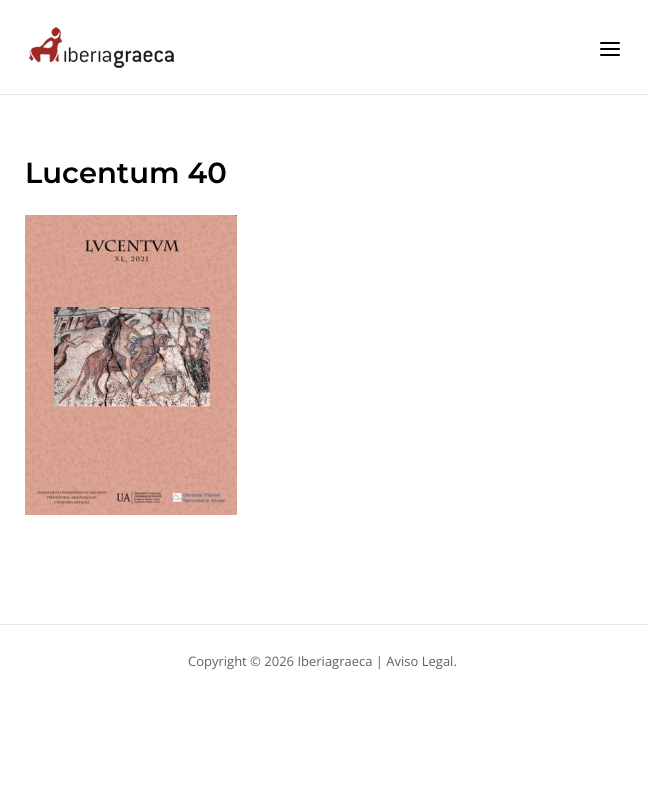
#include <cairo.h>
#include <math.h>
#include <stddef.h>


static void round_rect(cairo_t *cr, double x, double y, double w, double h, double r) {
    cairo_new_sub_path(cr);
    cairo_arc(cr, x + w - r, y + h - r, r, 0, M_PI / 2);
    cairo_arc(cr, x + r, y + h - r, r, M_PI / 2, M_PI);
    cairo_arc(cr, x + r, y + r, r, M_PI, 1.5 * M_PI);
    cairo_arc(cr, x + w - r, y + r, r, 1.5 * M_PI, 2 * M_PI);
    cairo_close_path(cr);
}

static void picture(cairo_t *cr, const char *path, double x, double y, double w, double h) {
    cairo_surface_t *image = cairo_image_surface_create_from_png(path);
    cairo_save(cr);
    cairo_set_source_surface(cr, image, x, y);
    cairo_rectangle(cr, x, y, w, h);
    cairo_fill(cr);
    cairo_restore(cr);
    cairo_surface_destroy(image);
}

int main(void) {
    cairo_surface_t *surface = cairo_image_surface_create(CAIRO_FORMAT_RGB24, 648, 794);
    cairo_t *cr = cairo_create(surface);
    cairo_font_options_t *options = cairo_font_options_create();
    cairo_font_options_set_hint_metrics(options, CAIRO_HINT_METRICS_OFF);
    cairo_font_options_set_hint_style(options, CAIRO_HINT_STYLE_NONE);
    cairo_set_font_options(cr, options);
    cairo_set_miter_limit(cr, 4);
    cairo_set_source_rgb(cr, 1, 1, 1);
    cairo_paint(cr);
    cairo_set_source_rgb(cr, 0.902, 0.902, 0.902);
    cairo_rectangle(cr, 0, 94, 648, 1);
    cairo_fill(cr);
    picture(cr, "img1.png", 29, 27, 145, 41);
    cairo_set_source_rgb(cr, 0, 0, 0);
    round_rect(cr, 600, 42, 20, 2, 1);
    cairo_fill(cr);
    round_rect(cr, 600, 48, 20, 2, 1);
    cairo_fill(cr);
    round_rect(cr, 600, 54, 20, 2, 1);
    cairo_fill(cr);
    cairo_select_font_face(cr, "Montserrat SemiBold", CAIRO_FONT_SLANT_NORMAL, CAIRO_FONT_WEIGHT_NORMAL);
    cairo_set_font_size(cr, 29);
    cairo_move_to(cr, 25, 183);
    cairo_show_text(cr, "Lucentum 40");
    picture(cr, "img2.png", 25, 215, 212, 300);
    cairo_set_source_rgb(cr, 0.902, 0.902, 0.902);
    cairo_rectangle(cr, 0, 624, 648, 1);
    cairo_fill(cr);
    cairo_select_font_face(cr, "Open Sans", CAIRO_FONT_SLANT_NORMAL, CAIRO_FONT_WEIGHT_NORMAL);
    cairo_set_font_size(cr, 13);
    cairo_set_source_rgb(cr, 0.384, 0.384, 0.384);
    cairo_move_to(cr, 188, 666);
    cairo_show_text(cr, "Copyright © 2026 Iberiagraeca | Aviso Legal.");
    cairo_surface_write_to_png(surface, "page.png");
    cairo_font_options_destroy(options);
    cairo_destroy(cr);
    cairo_surface_destroy(surface);
    return 0;
}
